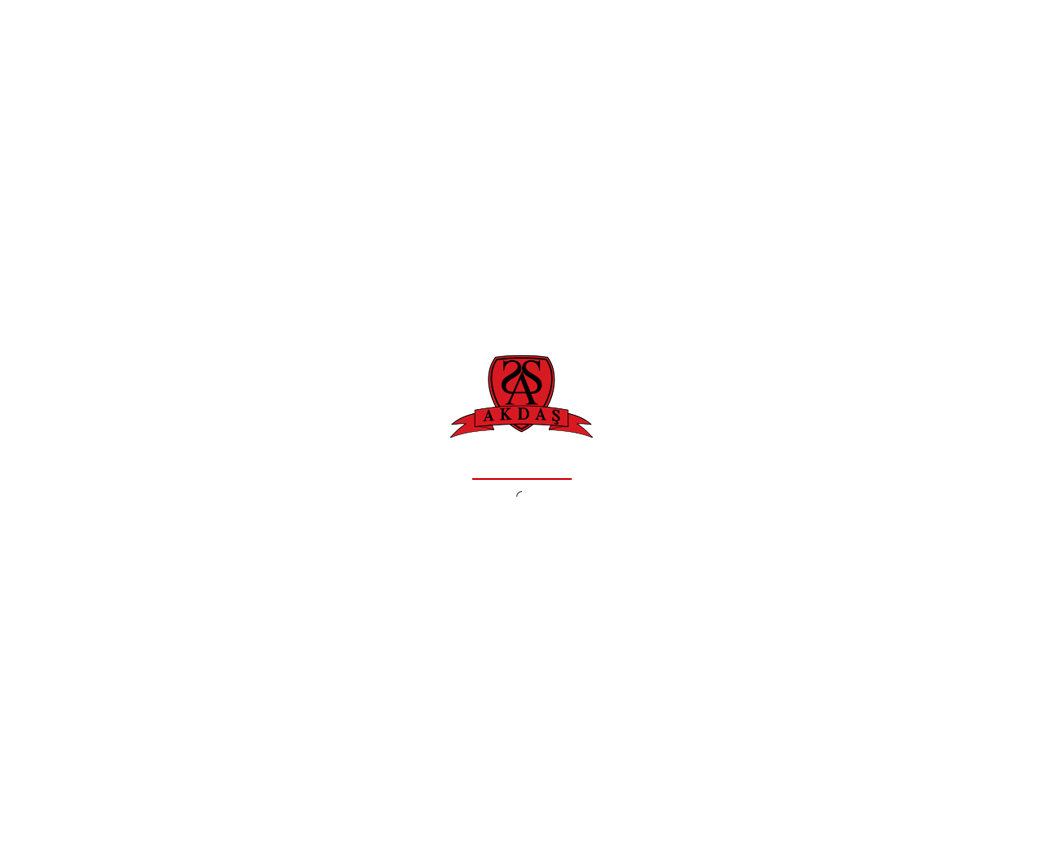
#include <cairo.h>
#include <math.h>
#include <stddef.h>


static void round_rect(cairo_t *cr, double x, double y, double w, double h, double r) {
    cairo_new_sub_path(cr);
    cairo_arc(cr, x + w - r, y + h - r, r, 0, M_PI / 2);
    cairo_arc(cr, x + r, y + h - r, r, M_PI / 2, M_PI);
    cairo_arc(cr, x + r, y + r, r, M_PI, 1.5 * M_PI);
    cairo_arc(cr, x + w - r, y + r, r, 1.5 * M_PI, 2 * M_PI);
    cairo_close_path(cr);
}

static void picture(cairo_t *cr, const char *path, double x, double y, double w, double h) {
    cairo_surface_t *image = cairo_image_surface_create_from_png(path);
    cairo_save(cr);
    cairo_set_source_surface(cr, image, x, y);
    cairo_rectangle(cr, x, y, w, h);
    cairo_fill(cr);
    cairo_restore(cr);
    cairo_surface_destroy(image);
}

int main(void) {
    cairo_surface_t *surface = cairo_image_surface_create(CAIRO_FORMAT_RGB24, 1043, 858);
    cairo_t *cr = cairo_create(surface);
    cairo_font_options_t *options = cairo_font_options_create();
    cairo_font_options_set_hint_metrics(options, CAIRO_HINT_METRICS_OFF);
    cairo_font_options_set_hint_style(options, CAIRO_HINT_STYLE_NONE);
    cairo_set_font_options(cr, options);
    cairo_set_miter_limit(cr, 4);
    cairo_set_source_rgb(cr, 1, 1, 1);
    cairo_paint(cr);
    picture(cr, "img1.png", 450, 355, 143, 83);
    cairo_set_source_rgb(cr, 0.843, 0.098, 0.133);
    round_rect(cr, 472, 478, 100, 2, 1);
    cairo_fill(cr);
    picture(cr, "img2.png", 516, 490, 6, 7);
    cairo_surface_write_to_png(surface, "page.png");
    cairo_font_options_destroy(options);
    cairo_destroy(cr);
    cairo_surface_destroy(surface);
    return 0;
}
